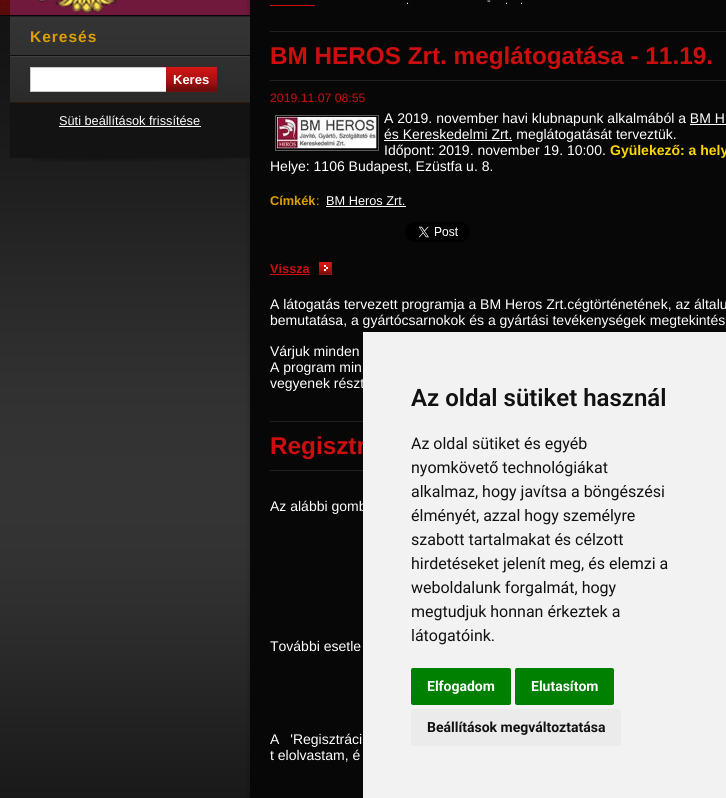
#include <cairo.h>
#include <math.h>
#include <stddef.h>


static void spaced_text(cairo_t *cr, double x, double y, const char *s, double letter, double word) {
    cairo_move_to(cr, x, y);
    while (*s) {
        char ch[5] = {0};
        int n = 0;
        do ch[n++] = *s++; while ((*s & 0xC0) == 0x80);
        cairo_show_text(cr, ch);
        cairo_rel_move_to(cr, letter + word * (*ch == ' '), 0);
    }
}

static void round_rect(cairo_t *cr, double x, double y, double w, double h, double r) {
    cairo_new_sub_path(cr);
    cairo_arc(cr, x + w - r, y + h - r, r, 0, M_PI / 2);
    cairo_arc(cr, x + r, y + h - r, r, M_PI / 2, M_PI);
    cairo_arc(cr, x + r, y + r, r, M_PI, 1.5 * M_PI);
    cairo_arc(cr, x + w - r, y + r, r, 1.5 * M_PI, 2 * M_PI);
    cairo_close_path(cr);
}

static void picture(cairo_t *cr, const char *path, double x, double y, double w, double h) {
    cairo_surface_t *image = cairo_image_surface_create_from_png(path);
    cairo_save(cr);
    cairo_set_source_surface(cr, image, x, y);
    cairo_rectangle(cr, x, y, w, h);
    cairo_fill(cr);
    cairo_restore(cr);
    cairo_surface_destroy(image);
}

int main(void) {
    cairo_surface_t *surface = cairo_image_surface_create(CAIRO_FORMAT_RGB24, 726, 798);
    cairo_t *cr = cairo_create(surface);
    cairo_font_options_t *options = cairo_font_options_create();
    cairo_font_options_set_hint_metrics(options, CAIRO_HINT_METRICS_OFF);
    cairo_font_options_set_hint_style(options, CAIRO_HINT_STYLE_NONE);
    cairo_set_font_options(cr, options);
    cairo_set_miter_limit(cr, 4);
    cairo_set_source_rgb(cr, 1, 1, 1);
    cairo_paint(cr);
    picture(cr, "img1.png", 0, 0, 250, 798);
    picture(cr, "img2.png", 10, 0, 240, 15);
    picture(cr, "img3.png", 246, 0, 480, 798);
    picture(cr, "img4.png", 33, 158, 192, 4);
    picture(cr, "img5.png", 10, 17, 240, 85);
    cairo_set_source_rgb(cr, 0.2, 0.106, 0.031);
    cairo_rectangle(cr, 10, 102, 240, 1);
    cairo_fill(cr);
    picture(cr, "img6.png", 10, 55, 240, 2);
    cairo_set_source_rgb(cr, 0.129, 0.129, 0.129);
    cairo_rectangle(cr, 10, 16, 240, 1);
    cairo_fill(cr);
    cairo_select_font_face(cr, "Liberation Sans", CAIRO_FONT_SLANT_NORMAL, CAIRO_FONT_WEIGHT_BOLD);
    cairo_set_font_size(cr, 15.5);
    cairo_set_source_rgb(cr, 0.867, 0.627, 0);
    spaced_text(cr, 30, 42, "Keresés", 1, 0);
    cairo_set_source_rgb(cr, 1, 1, 1);
    cairo_rectangle(cr, 30.5, 67.5, 136, 24);
    cairo_fill_preserve(cr);
    cairo_set_source_rgb(cr, 0.788, 0.788, 0.788);
    cairo_set_line_width(cr, 1);
    cairo_stroke(cr);
    cairo_set_source_rgb(cr, 0.49, 0.051, 0.051);
    cairo_rectangle(cr, 166, 91, 51, 1);
    cairo_fill(cr);
    picture(cr, "img7.png", 166, 67, 51, 24);
    cairo_set_font_size(cr, 13);
    cairo_set_source_rgb(cr, 1, 1, 1);
    cairo_move_to(cr, 173, 84);
    cairo_show_text(cr, "Keres");
    cairo_set_source_rgb(cr, 0.075, 0.075, 0.075);
    cairo_rectangle(cr, 10, 103, 240, 55);
    cairo_fill(cr);
    cairo_select_font_face(cr, "Liberation Sans", CAIRO_FONT_SLANT_NORMAL, CAIRO_FONT_WEIGHT_NORMAL);
    cairo_set_font_size(cr, 12.75);
    cairo_set_source_rgb(cr, 1, 1, 1);
    cairo_move_to(cr, 59, 125);
    cairo_show_text(cr, "Süti beállítások frissítése");
    cairo_rectangle(cr, 59, 126, 142, 1);
    cairo_fill(cr);
    cairo_set_font_size(cr, 11);
    cairo_move_to(cr, 487, 4);
    cairo_show_text(cr, "-");
    cairo_move_to(cr, 406, 4);
    cairo_show_text(cr, ".");
    cairo_move_to(cr, 505, 4);
    cairo_show_text(cr, ".");
    cairo_move_to(cr, 520, 4);
    cairo_show_text(cr, ".");
    cairo_set_source_rgb(cr, 0.8, 0.055, 0.055);
    cairo_rectangle(cr, 270, 5, 45, 1);
    cairo_fill(cr);
    cairo_set_source_rgb(cr, 0.129, 0.129, 0.129);
    cairo_rectangle(cr, 270, 31, 456, 1);
    cairo_fill(cr);
    cairo_rectangle(cr, 270, 80, 456, 1);
    cairo_fill(cr);
    cairo_select_font_face(cr, "Liberation Sans", CAIRO_FONT_SLANT_NORMAL, CAIRO_FONT_WEIGHT_BOLD);
    cairo_set_font_size(cr, 24.3);
    cairo_set_source_rgb(cr, 0.8, 0.055, 0.055);
    cairo_move_to(cr, 270, 64);
    cairo_show_text(cr, "BM HEROS Zrt. meglátogatása - 11.19.");
    cairo_select_font_face(cr, "Liberation Sans", CAIRO_FONT_SLANT_NORMAL, CAIRO_FONT_WEIGHT_NORMAL);
    cairo_set_font_size(cr, 12.25);
    cairo_move_to(cr, 270, 102);
    cairo_show_text(cr, "2019.11.07 08:55");
    cairo_rectangle(cr, 275.5, 115.5, 103, 35);
    cairo_set_source_rgb(cr, 0.361, 0.361, 0.361);
    cairo_stroke(cr);
    picture(cr, "img8.png", 277, 117, 100, 32);
    cairo_set_font_size(cr, 14);
    cairo_set_source_rgb(cr, 1, 1, 1);
    cairo_move_to(cr, 384, 123);
    cairo_show_text(cr, "A 2019. november havi klubnapunk alkalmából a BM H");
    cairo_rectangle(cr, 384, 140, 128, 1);
    cairo_fill(cr);
    cairo_move_to(cr, 384, 139);
    cairo_show_text(cr, "és Kereskedelmi Zrt. meglátogatását terveztük.");
    cairo_rectangle(cr, 690, 124, 36, 1);
    cairo_fill(cr);
    cairo_move_to(cr, 384, 155);
    cairo_show_text(cr, "Időpont: 2019. november 19. 10:00.");
    cairo_select_font_face(cr, "Liberation Sans", CAIRO_FONT_SLANT_NORMAL, CAIRO_FONT_WEIGHT_BOLD);
    cairo_set_source_rgb(cr, 1, 0.843, 0);
    cairo_move_to(cr, 610, 155);
    cairo_show_text(cr, "Gyülekező: a hely");
    cairo_select_font_face(cr, "Liberation Sans", CAIRO_FONT_SLANT_NORMAL, CAIRO_FONT_WEIGHT_NORMAL);
    cairo_set_source_rgb(cr, 1, 1, 1);
    cairo_move_to(cr, 270, 171);
    cairo_show_text(cr, "Helye: 1106 Budapest, Ezüstfa u. 8.");
    cairo_select_font_face(cr, "Liberation Sans", CAIRO_FONT_SLANT_NORMAL, CAIRO_FONT_WEIGHT_BOLD);
    cairo_set_font_size(cr, 12.75);
    cairo_set_source_rgb(cr, 0.867, 0.627, 0);
    cairo_move_to(cr, 270, 205);
    cairo_show_text(cr, "Címkék");
    cairo_select_font_face(cr, "Liberation Sans", CAIRO_FONT_SLANT_NORMAL, CAIRO_FONT_WEIGHT_NORMAL);
    cairo_move_to(cr, 316, 205);
    cairo_show_text(cr, ":");
    cairo_set_source_rgb(cr, 1, 1, 1);
    cairo_move_to(cr, 326, 205);
    cairo_show_text(cr, "BM Heros Zrt.");
    cairo_rectangle(cr, 326, 206, 80, 1);
    cairo_fill(cr);
    picture(cr, "img9.png", 405, 222, 65, 20);
    picture(cr, "img10.png", 319, 262, 13, 13);
    cairo_select_font_face(cr, "Liberation Sans", CAIRO_FONT_SLANT_NORMAL, CAIRO_FONT_WEIGHT_BOLD);
    cairo_set_source_rgb(cr, 0.8, 0.055, 0.055);
    cairo_move_to(cr, 270, 273);
    cairo_show_text(cr, "Vissza");
    cairo_rectangle(cr, 270, 274, 40, 1);
    cairo_fill(cr);
    cairo_select_font_face(cr, "Liberation Sans", CAIRO_FONT_SLANT_NORMAL, CAIRO_FONT_WEIGHT_NORMAL);
    cairo_set_font_size(cr, 14);
    cairo_set_source_rgb(cr, 1, 1, 1);
    cairo_move_to(cr, 270, 309);
    cairo_show_text(cr, "A látogatás tervezett programja a BM Heros Zrt.cégtörténetének, az általu");
    cairo_move_to(cr, 270, 325);
    cairo_show_text(cr, "bemutatása, a gyártócsarnokok és a gyártási tevékenységek megtekintés");
    cairo_move_to(cr, 270, 356);
    cairo_show_text(cr, "Várjuk minden");
    cairo_move_to(cr, 270, 372);
    cairo_show_text(cr, "A program min");
    cairo_move_to(cr, 270, 388);
    cairo_show_text(cr, "vegyenek részt");
    cairo_set_source_rgb(cr, 0.129, 0.129, 0.129);
    cairo_rectangle(cr, 270, 421, 93, 1);
    cairo_fill(cr);
    cairo_rectangle(cr, 270, 470, 93, 1);
    cairo_fill(cr);
    cairo_select_font_face(cr, "Liberation Sans", CAIRO_FONT_SLANT_NORMAL, CAIRO_FONT_WEIGHT_BOLD);
    cairo_set_font_size(cr, 24.3);
    cairo_set_source_rgb(cr, 0.8, 0.055, 0.055);
    cairo_move_to(cr, 270, 454);
    cairo_show_text(cr, "Regisztr");
    cairo_select_font_face(cr, "Liberation Sans", CAIRO_FONT_SLANT_NORMAL, CAIRO_FONT_WEIGHT_NORMAL);
    cairo_set_font_size(cr, 14);
    cairo_set_source_rgb(cr, 1, 1, 1);
    cairo_move_to(cr, 270, 511);
    cairo_show_text(cr, "Az alábbi gomb");
    cairo_move_to(cr, 270, 651);
    cairo_show_text(cr, "További esetle");
    spaced_text(cr, 270, 744, "A 'Regisztráci", 0, 7);
    cairo_move_to(cr, 270, 760);
    cairo_show_text(cr, "t elolvastam, é");
    cairo_set_source_rgb(cr, 0.949, 0.949, 0.949);
    cairo_rectangle(cr, 363, 332, 363, 466);
    cairo_fill(cr);
    cairo_select_font_face(cr, "Roboto SemiBold", CAIRO_FONT_SLANT_NORMAL, CAIRO_FONT_WEIGHT_NORMAL);
    cairo_set_font_size(cr, 24);
    cairo_set_source_rgb(cr, 0.067, 0.067, 0.067);
    cairo_move_to(cr, 411, 406);
    cairo_show_text(cr, "Az oldal sütiket használ");
    cairo_select_font_face(cr, "Roboto", CAIRO_FONT_SLANT_NORMAL, CAIRO_FONT_WEIGHT_NORMAL);
    cairo_set_font_size(cr, 16);
    cairo_move_to(cr, 411, 449);
    cairo_show_text(cr, "Az oldal sütiket és egyéb");
    cairo_move_to(cr, 411, 473);
    cairo_show_text(cr, "nyomkövető technológiákat");
    cairo_move_to(cr, 411, 497);
    cairo_show_text(cr, "alkalmaz, hogy javítsa a böngészési");
    cairo_move_to(cr, 411, 521);
    cairo_show_text(cr, "élményét, azzal hogy személyre");
    cairo_move_to(cr, 411, 545);
    cairo_show_text(cr, "szabott tartalmakat és célzott");
    cairo_move_to(cr, 411, 569);
    cairo_show_text(cr, "hirdetéseket jelenít meg, és elemzi a");
    cairo_move_to(cr, 411, 593);
    cairo_show_text(cr, "weboldalunk forgalmát, hogy");
    cairo_move_to(cr, 411, 617);
    cairo_show_text(cr, "megtudjuk honnan érkeztek a");
    cairo_move_to(cr, 411, 641);
    cairo_show_text(cr, "látogatóink.");
    cairo_set_source_rgb(cr, 0, 0.502, 0);
    round_rect(cr, 411, 668, 100, 37, 2);
    cairo_fill(cr);
    cairo_select_font_face(cr, "Roboto", CAIRO_FONT_SLANT_NORMAL, CAIRO_FONT_WEIGHT_BOLD);
    cairo_set_font_size(cr, 14);
    cairo_set_source_rgb(cr, 1, 1, 1);
    cairo_move_to(cr, 427, 691);
    cairo_show_text(cr, "Elfogadom");
    cairo_set_source_rgb(cr, 0, 0.502, 0);
    round_rect(cr, 515, 668, 99, 37, 2);
    cairo_fill(cr);
    cairo_set_source_rgb(cr, 1, 1, 1);
    cairo_move_to(cr, 531, 691);
    cairo_show_text(cr, "Elutasítom");
    cairo_set_source_rgb(cr, 0.918, 0.918, 0.918);
    round_rect(cr, 411, 709, 210, 37, 2);
    cairo_fill(cr);
    cairo_set_source_rgb(cr, 0.067, 0.067, 0.067);
    cairo_move_to(cr, 427, 732);
    cairo_show_text(cr, "Beállítások megváltoztatása");
    cairo_surface_write_to_png(surface, "page.png");
    cairo_font_options_destroy(options);
    cairo_destroy(cr);
    cairo_surface_destroy(surface);
    return 0;
}
